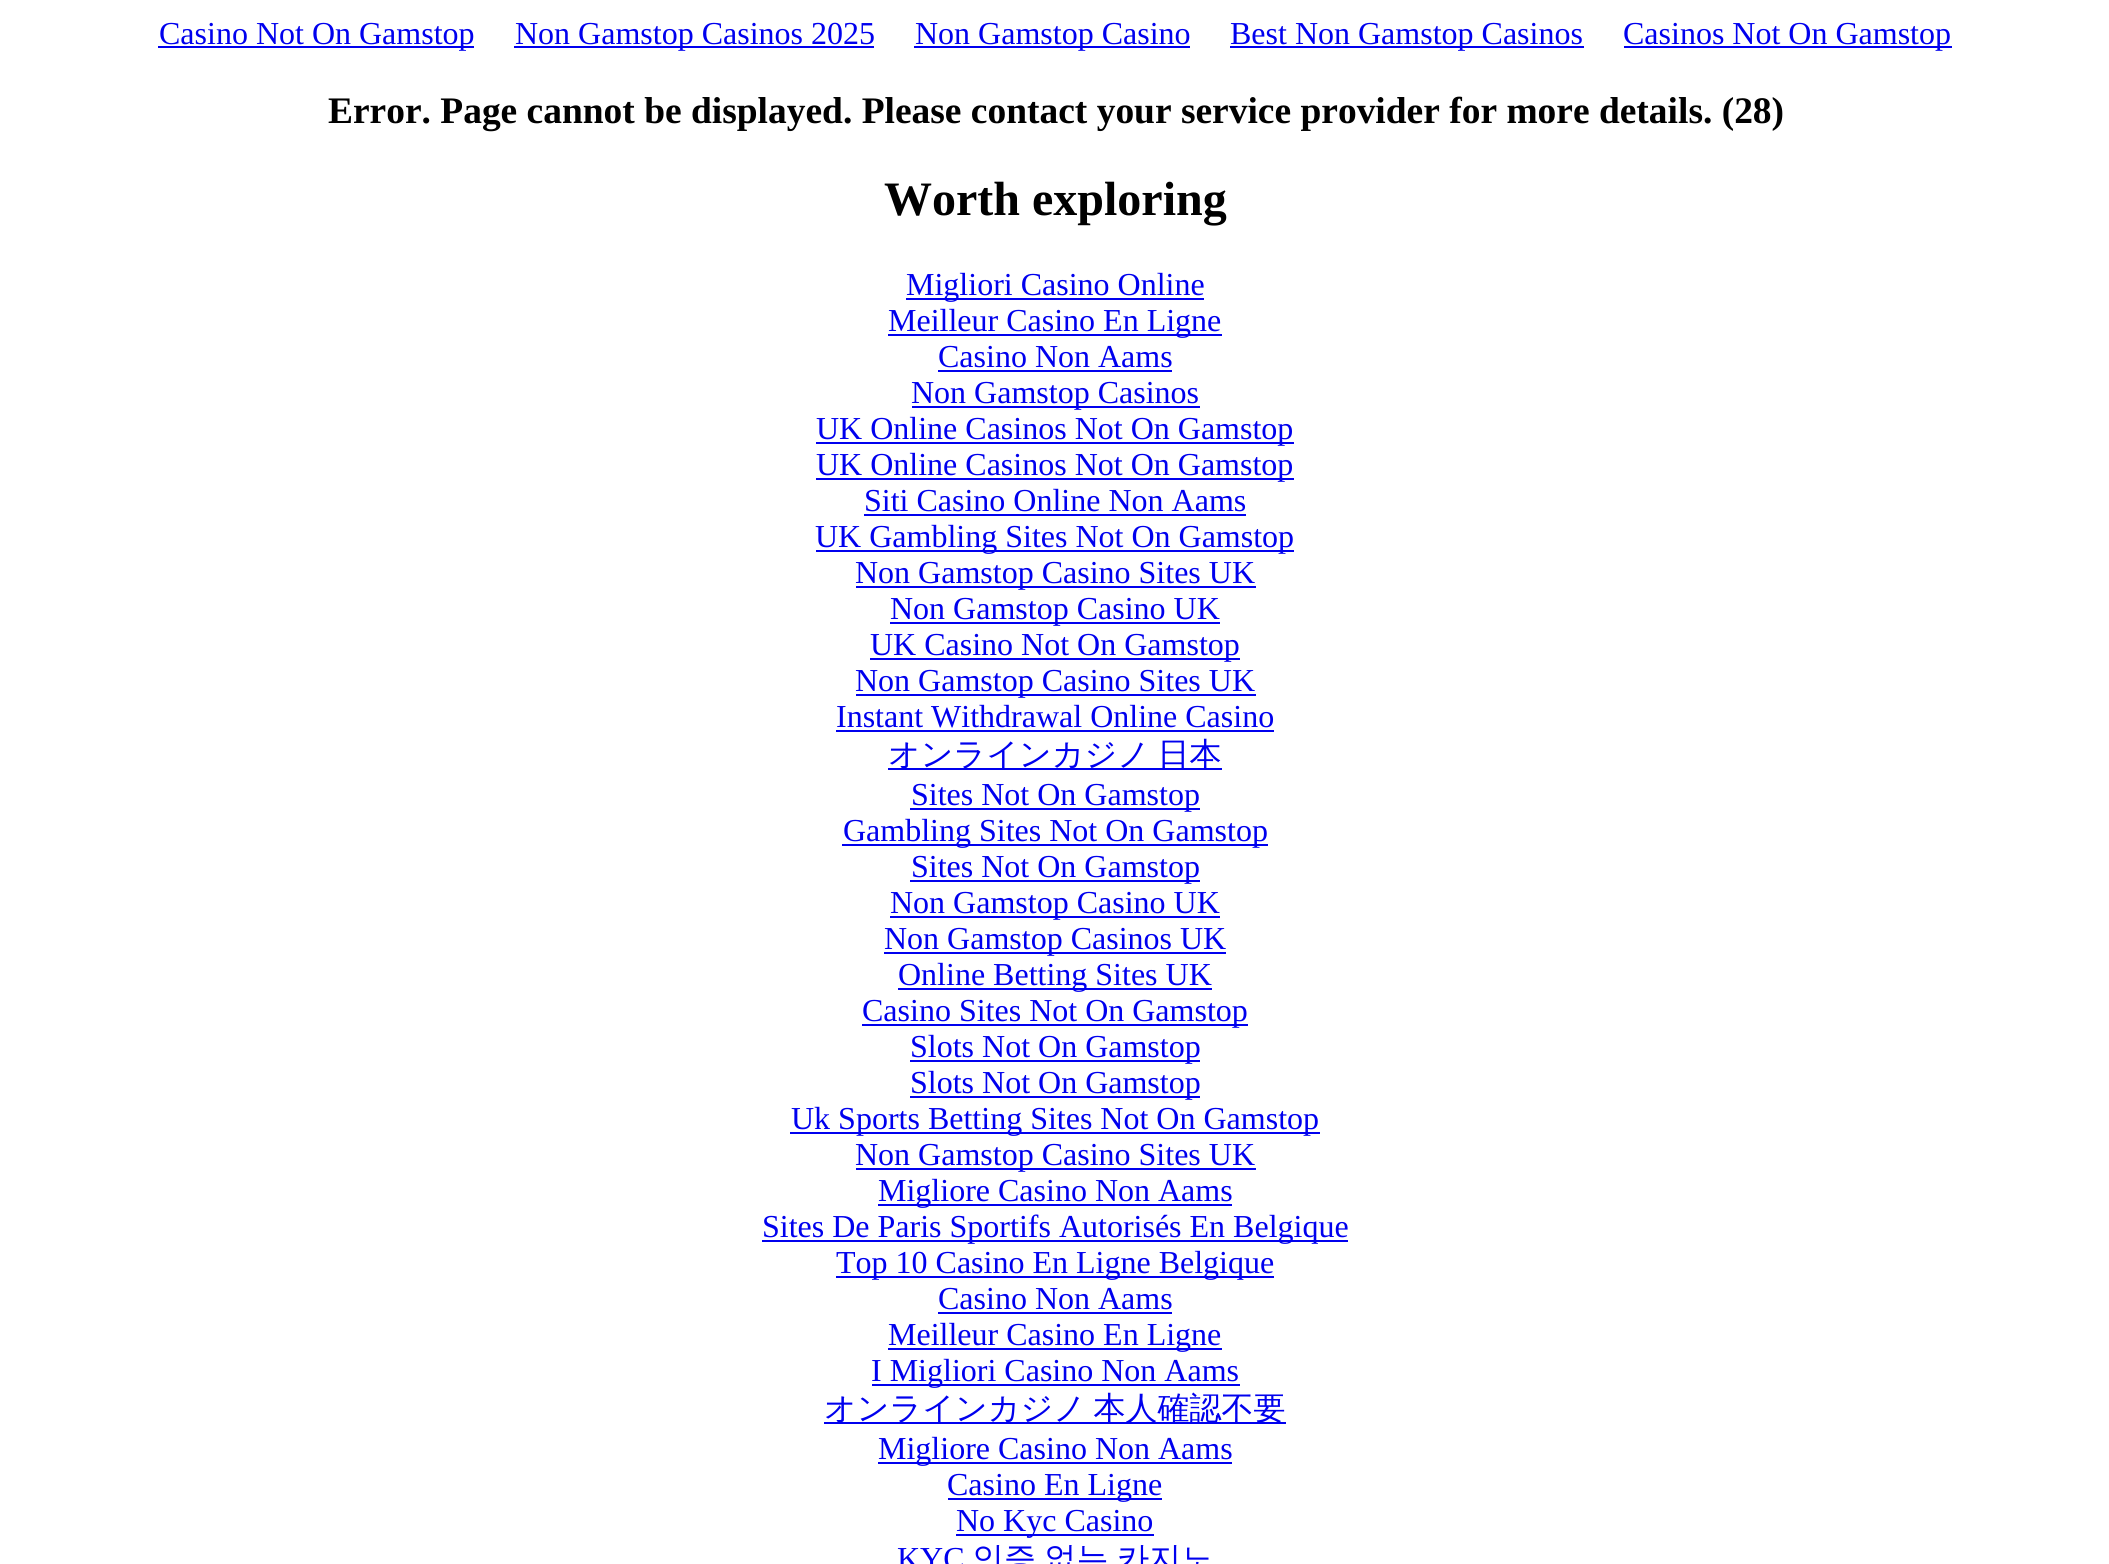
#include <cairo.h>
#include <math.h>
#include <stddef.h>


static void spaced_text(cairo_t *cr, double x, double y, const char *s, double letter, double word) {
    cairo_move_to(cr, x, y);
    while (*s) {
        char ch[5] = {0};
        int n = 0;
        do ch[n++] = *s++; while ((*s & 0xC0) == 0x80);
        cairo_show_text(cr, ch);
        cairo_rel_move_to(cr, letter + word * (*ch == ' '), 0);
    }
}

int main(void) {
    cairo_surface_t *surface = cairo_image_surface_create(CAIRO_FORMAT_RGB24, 2109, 1564);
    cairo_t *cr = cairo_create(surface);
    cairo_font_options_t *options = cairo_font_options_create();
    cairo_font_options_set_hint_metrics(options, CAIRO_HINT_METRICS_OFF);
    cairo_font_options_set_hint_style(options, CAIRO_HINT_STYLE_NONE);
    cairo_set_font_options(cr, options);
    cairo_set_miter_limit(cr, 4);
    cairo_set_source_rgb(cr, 1, 1, 1);
    cairo_paint(cr);
    cairo_set_source_rgb(cr, 0, 0, 0.933);
    cairo_rectangle(cr, 158, 46, 316, 2);
    cairo_fill(cr);
    cairo_select_font_face(cr, "Liberation Serif", CAIRO_FONT_SLANT_NORMAL, CAIRO_FONT_WEIGHT_NORMAL);
    cairo_set_font_size(cr, 32);
    cairo_move_to(cr, 159, 44);
    cairo_show_text(cr, "Casino Not On Gamstop");
    cairo_rectangle(cr, 514, 46, 360, 2);
    cairo_fill(cr);
    cairo_move_to(cr, 515, 44);
    cairo_show_text(cr, "Non Gamstop Casinos 2025");
    cairo_rectangle(cr, 914, 46, 276, 2);
    cairo_fill(cr);
    cairo_move_to(cr, 915, 44);
    cairo_show_text(cr, "Non Gamstop Casino");
    cairo_rectangle(cr, 1230, 46, 354, 2);
    cairo_fill(cr);
    cairo_move_to(cr, 1230, 44);
    cairo_show_text(cr, "Best Non Gamstop Casinos");
    cairo_rectangle(cr, 1624, 46, 328, 2);
    cairo_fill(cr);
    cairo_move_to(cr, 1623, 44);
    cairo_show_text(cr, "Casinos Not On Gamstop");
    cairo_select_font_face(cr, "Liberation Serif", CAIRO_FONT_SLANT_NORMAL, CAIRO_FONT_WEIGHT_BOLD);
    cairo_set_font_size(cr, 37.45);
    cairo_set_source_rgb(cr, 0, 0, 0);
    cairo_move_to(cr, 328, 123);
    cairo_show_text(cr, "Error. Page cannot be displayed. Please contact your service provider for more details. (28)");
    cairo_set_font_size(cr, 48);
    cairo_move_to(cr, 884, 215);
    cairo_show_text(cr, "Worth exploring");
    cairo_set_source_rgb(cr, 0, 0, 0.933);
    cairo_rectangle(cr, 906, 298, 298, 2);
    cairo_fill(cr);
    cairo_select_font_face(cr, "Liberation Serif", CAIRO_FONT_SLANT_NORMAL, CAIRO_FONT_WEIGHT_NORMAL);
    cairo_set_font_size(cr, 32);
    cairo_move_to(cr, 906, 295);
    cairo_show_text(cr, "Migliori Casino Online");
    cairo_rectangle(cr, 888, 334, 334, 2);
    cairo_fill(cr);
    cairo_move_to(cr, 888, 331);
    cairo_show_text(cr, "Meilleur Casino En Ligne");
    cairo_move_to(cr, 938, 367);
    cairo_show_text(cr, "Casino Non Aams");
    cairo_rectangle(cr, 938, 370, 234, 2);
    cairo_fill(cr);
    cairo_rectangle(cr, 912, 406, 288, 2);
    cairo_fill(cr);
    cairo_move_to(cr, 911, 403);
    cairo_show_text(cr, "Non Gamstop Casinos");
    cairo_rectangle(cr, 816, 442, 478, 2);
    cairo_fill(cr);
    cairo_move_to(cr, 816, 439);
    cairo_show_text(cr, "UK Online Casinos Not On Gamstop");
    cairo_rectangle(cr, 816, 478, 478, 2);
    cairo_fill(cr);
    cairo_move_to(cr, 816, 475);
    cairo_show_text(cr, "UK Online Casinos Not On Gamstop");
    cairo_move_to(cr, 864, 511);
    cairo_show_text(cr, "Siti Casino Online Non Aams");
    cairo_rectangle(cr, 864, 514, 382, 2);
    cairo_fill(cr);
    cairo_rectangle(cr, 816, 550, 478, 2);
    cairo_fill(cr);
    cairo_move_to(cr, 815, 547);
    cairo_show_text(cr, "UK Gambling Sites Not On Gamstop");
    cairo_rectangle(cr, 856, 586, 400, 2);
    cairo_fill(cr);
    cairo_move_to(cr, 855, 583);
    cairo_show_text(cr, "Non Gamstop Casino Sites UK");
    cairo_rectangle(cr, 890, 622, 330, 2);
    cairo_fill(cr);
    cairo_move_to(cr, 890, 619);
    cairo_show_text(cr, "Non Gamstop Casino UK");
    cairo_rectangle(cr, 870, 658, 370, 2);
    cairo_fill(cr);
    cairo_move_to(cr, 870, 655);
    cairo_show_text(cr, "UK Casino Not On Gamstop");
    cairo_rectangle(cr, 856, 694, 400, 2);
    cairo_fill(cr);
    cairo_move_to(cr, 855, 691);
    cairo_show_text(cr, "Non Gamstop Casino Sites UK");
    cairo_move_to(cr, 836, 727);
    cairo_show_text(cr, "Instant Withdrawal Online Casino");
    cairo_rectangle(cr, 836, 730, 438, 2);
    cairo_fill(cr);
    cairo_rectangle(cr, 888, 768, 334, 2);
    cairo_fill(cr);
    cairo_select_font_face(cr, "WenQuanYi Zen Hei Medium", CAIRO_FONT_SLANT_NORMAL, CAIRO_FONT_WEIGHT_NORMAL);
    spaced_text(cr, 888, 765, "オンラインカジノ 日本", 0, -2);
    cairo_rectangle(cr, 910, 808, 290, 2);
    cairo_fill(cr);
    cairo_select_font_face(cr, "Liberation Serif", CAIRO_FONT_SLANT_NORMAL, CAIRO_FONT_WEIGHT_NORMAL);
    cairo_move_to(cr, 911, 805);
    cairo_show_text(cr, "Sites Not On Gamstop");
    cairo_rectangle(cr, 842, 844, 426, 2);
    cairo_fill(cr);
    cairo_move_to(cr, 843, 841);
    cairo_show_text(cr, "Gambling Sites Not On Gamstop");
    cairo_rectangle(cr, 910, 880, 290, 2);
    cairo_fill(cr);
    cairo_move_to(cr, 911, 877);
    cairo_show_text(cr, "Sites Not On Gamstop");
    cairo_rectangle(cr, 890, 916, 330, 2);
    cairo_fill(cr);
    cairo_move_to(cr, 890, 913);
    cairo_show_text(cr, "Non Gamstop Casino UK");
    cairo_rectangle(cr, 884, 952, 342, 2);
    cairo_fill(cr);
    cairo_move_to(cr, 884, 949);
    cairo_show_text(cr, "Non Gamstop Casinos UK");
    cairo_rectangle(cr, 898, 988, 314, 2);
    cairo_fill(cr);
    cairo_move_to(cr, 898, 985);
    cairo_show_text(cr, "Online Betting Sites UK");
    cairo_rectangle(cr, 862, 1024, 386, 2);
    cairo_fill(cr);
    cairo_move_to(cr, 862, 1021);
    cairo_show_text(cr, "Casino Sites Not On Gamstop");
    cairo_rectangle(cr, 910, 1060, 290, 2);
    cairo_fill(cr);
    cairo_move_to(cr, 910, 1057);
    cairo_show_text(cr, "Slots Not On Gamstop");
    cairo_rectangle(cr, 910, 1096, 290, 2);
    cairo_fill(cr);
    cairo_move_to(cr, 910, 1093);
    cairo_show_text(cr, "Slots Not On Gamstop");
    cairo_rectangle(cr, 790, 1132, 530, 2);
    cairo_fill(cr);
    cairo_move_to(cr, 791, 1129);
    cairo_show_text(cr, "Uk Sports Betting Sites Not On Gamstop");
    cairo_rectangle(cr, 856, 1168, 400, 2);
    cairo_fill(cr);
    cairo_move_to(cr, 855, 1165);
    cairo_show_text(cr, "Non Gamstop Casino Sites UK");
    cairo_rectangle(cr, 878, 1204, 354, 2);
    cairo_fill(cr);
    cairo_move_to(cr, 878, 1201);
    cairo_show_text(cr, "Migliore Casino Non Aams");
    cairo_rectangle(cr, 762, 1240, 586, 2);
    cairo_fill(cr);
    cairo_move_to(cr, 762, 1237);
    cairo_show_text(cr, "Sites De Paris Sportifs Autorisés En Belgique");
    cairo_rectangle(cr, 836, 1276, 438, 2);
    cairo_fill(cr);
    cairo_move_to(cr, 836, 1273);
    cairo_show_text(cr, "Top 10 Casino En Ligne Belgique");
    cairo_move_to(cr, 938, 1309);
    cairo_show_text(cr, "Casino Non Aams");
    cairo_rectangle(cr, 938, 1312, 234, 2);
    cairo_fill(cr);
    cairo_rectangle(cr, 888, 1348, 334, 2);
    cairo_fill(cr);
    cairo_move_to(cr, 888, 1345);
    cairo_show_text(cr, "Meilleur Casino En Ligne");
    cairo_rectangle(cr, 872, 1384, 368, 2);
    cairo_fill(cr);
    cairo_move_to(cr, 871, 1381);
    cairo_show_text(cr, "I Migliori Casino Non Aams");
    cairo_rectangle(cr, 824, 1422, 462, 2);
    cairo_fill(cr);
    cairo_select_font_face(cr, "WenQuanYi Zen Hei Medium", CAIRO_FONT_SLANT_NORMAL, CAIRO_FONT_WEIGHT_NORMAL);
    spaced_text(cr, 824, 1419, "オンラインカジノ 本人確認不要", 0, -2);
    cairo_rectangle(cr, 878, 1462, 354, 2);
    cairo_fill(cr);
    cairo_select_font_face(cr, "Liberation Serif", CAIRO_FONT_SLANT_NORMAL, CAIRO_FONT_WEIGHT_NORMAL);
    cairo_move_to(cr, 878, 1459);
    cairo_show_text(cr, "Migliore Casino Non Aams");
    cairo_rectangle(cr, 948, 1498, 214, 2);
    cairo_fill(cr);
    cairo_move_to(cr, 947, 1495);
    cairo_show_text(cr, "Casino En Ligne");
    cairo_rectangle(cr, 956, 1534, 198, 2);
    cairo_fill(cr);
    cairo_move_to(cr, 956, 1531);
    cairo_show_text(cr, "No Kyc Casino");
    cairo_move_to(cr, 897, 1569);
    cairo_show_text(cr, "KYC");
    cairo_select_font_face(cr, "WenQuanYi Zen Hei Medium", CAIRO_FONT_SLANT_NORMAL, CAIRO_FONT_WEIGHT_NORMAL);
    spaced_text(cr, 972, 1569, "인증 없는 카지노", 0, -1);
    cairo_surface_write_to_png(surface, "page.png");
    cairo_font_options_destroy(options);
    cairo_destroy(cr);
    cairo_surface_destroy(surface);
    return 0;
}
